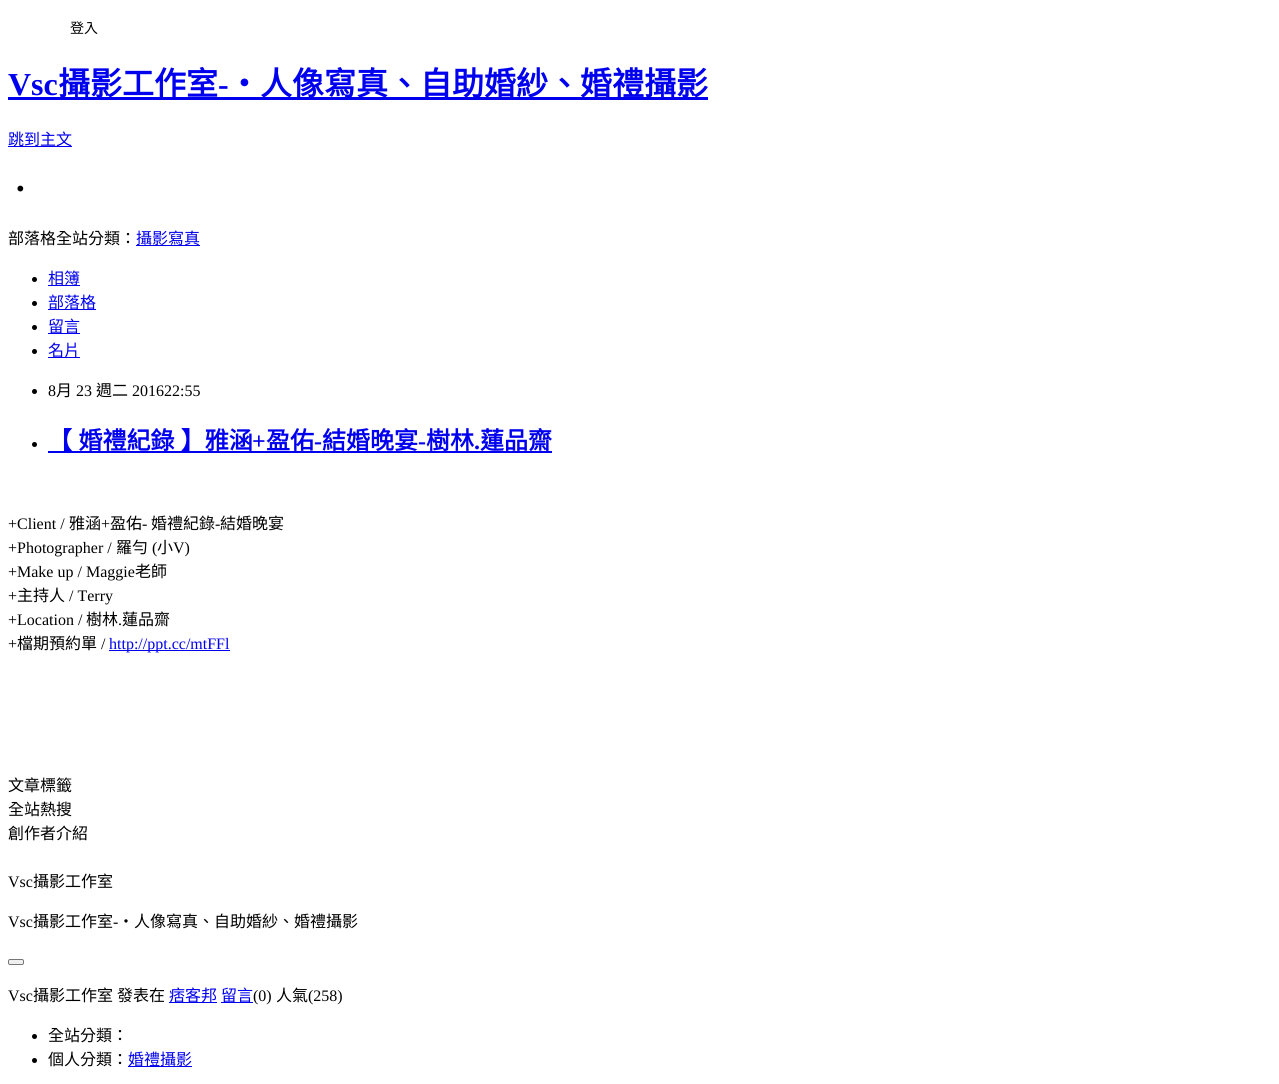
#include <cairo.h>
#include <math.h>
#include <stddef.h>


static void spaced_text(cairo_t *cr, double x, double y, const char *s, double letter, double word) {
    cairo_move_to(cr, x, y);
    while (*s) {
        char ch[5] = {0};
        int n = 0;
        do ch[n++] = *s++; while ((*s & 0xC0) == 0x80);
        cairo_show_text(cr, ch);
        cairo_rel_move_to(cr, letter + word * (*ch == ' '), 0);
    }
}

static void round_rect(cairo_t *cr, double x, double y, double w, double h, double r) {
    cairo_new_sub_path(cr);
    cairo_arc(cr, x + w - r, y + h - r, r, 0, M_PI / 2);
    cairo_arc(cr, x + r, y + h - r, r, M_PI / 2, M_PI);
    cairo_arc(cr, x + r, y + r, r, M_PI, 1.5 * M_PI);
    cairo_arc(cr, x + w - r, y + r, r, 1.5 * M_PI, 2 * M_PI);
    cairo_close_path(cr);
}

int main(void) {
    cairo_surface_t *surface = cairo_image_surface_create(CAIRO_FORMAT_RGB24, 1279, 1084);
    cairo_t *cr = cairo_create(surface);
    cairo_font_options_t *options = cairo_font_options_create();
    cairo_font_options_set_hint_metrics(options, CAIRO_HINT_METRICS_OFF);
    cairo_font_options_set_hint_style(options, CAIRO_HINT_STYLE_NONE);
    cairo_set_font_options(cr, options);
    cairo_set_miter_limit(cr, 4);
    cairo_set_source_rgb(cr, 1, 1, 1);
    cairo_paint(cr);
    cairo_select_font_face(cr, "Noto Sans CJK TC", CAIRO_FONT_SLANT_NORMAL, CAIRO_FONT_WEIGHT_NORMAL);
    cairo_set_font_size(cr, 14);
    cairo_set_source_rgb(cr, 0, 0, 0);
    cairo_move_to(cr, 70, 33);
    cairo_show_text(cr, "登入");
    cairo_select_font_face(cr, "Liberation Serif", CAIRO_FONT_SLANT_NORMAL, CAIRO_FONT_WEIGHT_BOLD);
    cairo_set_font_size(cr, 32);
    cairo_set_source_rgb(cr, 0, 0, 0.933);
    cairo_move_to(cr, 8, 95);
    cairo_show_text(cr, "Vsc");
    cairo_rectangle(cr, 8, 97, 700, 3);
    cairo_fill(cr);
    cairo_select_font_face(cr, "Noto Sans CJK TC", CAIRO_FONT_SLANT_NORMAL, CAIRO_FONT_WEIGHT_BOLD);
    cairo_move_to(cr, 58, 95);
    cairo_show_text(cr, "攝影工作室");
    cairo_select_font_face(cr, "Liberation Serif", CAIRO_FONT_SLANT_NORMAL, CAIRO_FONT_WEIGHT_BOLD);
    cairo_move_to(cr, 218, 95);
    cairo_show_text(cr, "-");
    cairo_select_font_face(cr, "Noto Sans CJK TC", CAIRO_FONT_SLANT_NORMAL, CAIRO_FONT_WEIGHT_BOLD);
    cairo_move_to(cr, 228, 95);
    cairo_show_text(cr, "‧人像寫真、自助婚紗、婚禮攝影");
    cairo_rectangle(cr, 8, 146, 64, 1);
    cairo_fill(cr);
    cairo_select_font_face(cr, "Noto Sans CJK TC", CAIRO_FONT_SLANT_NORMAL, CAIRO_FONT_WEIGHT_NORMAL);
    cairo_set_font_size(cr, 16);
    cairo_move_to(cr, 8, 145);
    cairo_show_text(cr, "跳到主文");
    cairo_select_font_face(cr, "Noto Sans CJK TC", CAIRO_FONT_SLANT_NORMAL, CAIRO_FONT_WEIGHT_BOLD);
    cairo_set_font_size(cr, 24);
    cairo_set_source_rgb(cr, 0, 0, 0);
    cairo_move_to(cr, 8, 198);
    cairo_show_text(cr, "‧");
    cairo_select_font_face(cr, "Noto Sans CJK TC", CAIRO_FONT_SLANT_NORMAL, CAIRO_FONT_WEIGHT_NORMAL);
    cairo_set_font_size(cr, 16);
    cairo_move_to(cr, 8, 244);
    cairo_show_text(cr, "部落格全站分類：");
    cairo_set_source_rgb(cr, 0, 0, 0.933);
    cairo_rectangle(cr, 136, 245, 64, 1);
    cairo_fill(cr);
    cairo_move_to(cr, 136, 244);
    cairo_show_text(cr, "攝影寫真");
    cairo_set_source_rgb(cr, 0, 0, 0);
    cairo_new_path(cr);
    cairo_arc(cr, 34.5, 279.5, 2.5, 0, 2 * M_PI);
    cairo_fill(cr);
    cairo_set_source_rgb(cr, 0, 0, 0.933);
    cairo_rectangle(cr, 48, 285, 32, 1);
    cairo_fill(cr);
    cairo_move_to(cr, 48, 284);
    cairo_show_text(cr, "相簿");
    cairo_set_source_rgb(cr, 0, 0, 0);
    cairo_new_path(cr);
    cairo_arc(cr, 34.5, 303.5, 2.5, 0, 2 * M_PI);
    cairo_fill(cr);
    cairo_set_source_rgb(cr, 0, 0, 0.933);
    cairo_rectangle(cr, 48, 309, 48, 1);
    cairo_fill(cr);
    cairo_move_to(cr, 48, 308);
    cairo_show_text(cr, "部落格");
    cairo_set_source_rgb(cr, 0, 0, 0);
    cairo_new_path(cr);
    cairo_arc(cr, 34.5, 327.5, 2.5, 0, 2 * M_PI);
    cairo_fill(cr);
    cairo_set_source_rgb(cr, 0, 0, 0.933);
    cairo_rectangle(cr, 48, 333, 32, 1);
    cairo_fill(cr);
    cairo_move_to(cr, 48, 332);
    cairo_show_text(cr, "留言");
    cairo_set_source_rgb(cr, 0, 0, 0);
    cairo_new_path(cr);
    cairo_arc(cr, 34.5, 351.5, 2.5, 0, 2 * M_PI);
    cairo_fill(cr);
    cairo_set_source_rgb(cr, 0, 0, 0.933);
    cairo_rectangle(cr, 48, 357, 32, 1);
    cairo_fill(cr);
    cairo_move_to(cr, 48, 356);
    cairo_show_text(cr, "名片");
    cairo_set_source_rgb(cr, 0, 0, 0);
    cairo_new_path(cr);
    cairo_arc(cr, 34.5, 391.5, 2.5, 0, 2 * M_PI);
    cairo_fill(cr);
    cairo_select_font_face(cr, "Liberation Serif", CAIRO_FONT_SLANT_NORMAL, CAIRO_FONT_WEIGHT_NORMAL);
    cairo_move_to(cr, 48, 396);
    cairo_show_text(cr, "8");
    cairo_select_font_face(cr, "Noto Sans CJK TC", CAIRO_FONT_SLANT_NORMAL, CAIRO_FONT_WEIGHT_NORMAL);
    cairo_move_to(cr, 56, 396);
    cairo_show_text(cr, "月");
    cairo_select_font_face(cr, "Liberation Serif", CAIRO_FONT_SLANT_NORMAL, CAIRO_FONT_WEIGHT_NORMAL);
    cairo_move_to(cr, 76, 396);
    cairo_show_text(cr, "23");
    cairo_select_font_face(cr, "Noto Sans CJK TC", CAIRO_FONT_SLANT_NORMAL, CAIRO_FONT_WEIGHT_NORMAL);
    cairo_move_to(cr, 96, 396);
    cairo_show_text(cr, "週二");
    cairo_select_font_face(cr, "Liberation Serif", CAIRO_FONT_SLANT_NORMAL, CAIRO_FONT_WEIGHT_NORMAL);
    cairo_move_to(cr, 132, 396);
    cairo_show_text(cr, "201622:55");
    cairo_new_path(cr);
    cairo_arc(cr, 34.5, 444.5, 2.5, 0, 2 * M_PI);
    cairo_fill(cr);
    cairo_set_source_rgb(cr, 0, 0, 0.933);
    cairo_rectangle(cr, 48, 451, 504, 2);
    cairo_fill(cr);
    cairo_select_font_face(cr, "Noto Sans CJK TC", CAIRO_FONT_SLANT_NORMAL, CAIRO_FONT_WEIGHT_BOLD);
    cairo_set_font_size(cr, 24);
    spaced_text(cr, 48, 449, "【 婚禮紀錄 】雅涵", 0, 1);
    cairo_select_font_face(cr, "Liberation Serif", CAIRO_FONT_SLANT_NORMAL, CAIRO_FONT_WEIGHT_BOLD);
    cairo_move_to(cr, 252, 449);
    cairo_show_text(cr, "+");
    cairo_select_font_face(cr, "Noto Sans CJK TC", CAIRO_FONT_SLANT_NORMAL, CAIRO_FONT_WEIGHT_BOLD);
    cairo_move_to(cr, 266, 449);
    cairo_show_text(cr, "盈佑");
    cairo_select_font_face(cr, "Liberation Serif", CAIRO_FONT_SLANT_NORMAL, CAIRO_FONT_WEIGHT_BOLD);
    cairo_move_to(cr, 314, 449);
    cairo_show_text(cr, "-");
    cairo_select_font_face(cr, "Noto Sans CJK TC", CAIRO_FONT_SLANT_NORMAL, CAIRO_FONT_WEIGHT_BOLD);
    cairo_move_to(cr, 322, 449);
    cairo_show_text(cr, "結婚晚宴");
    cairo_select_font_face(cr, "Liberation Serif", CAIRO_FONT_SLANT_NORMAL, CAIRO_FONT_WEIGHT_BOLD);
    cairo_move_to(cr, 418, 449);
    cairo_show_text(cr, "-");
    cairo_select_font_face(cr, "Noto Sans CJK TC", CAIRO_FONT_SLANT_NORMAL, CAIRO_FONT_WEIGHT_BOLD);
    cairo_move_to(cr, 426, 449);
    cairo_show_text(cr, "樹林");
    cairo_move_to(cr, 480, 449);
    cairo_show_text(cr, "蓮品齋");
    cairo_select_font_face(cr, "Liberation Serif", CAIRO_FONT_SLANT_NORMAL, CAIRO_FONT_WEIGHT_BOLD);
    cairo_move_to(cr, 474, 449);
    cairo_show_text(cr, ".");
    cairo_select_font_face(cr, "Liberation Serif", CAIRO_FONT_SLANT_NORMAL, CAIRO_FONT_WEIGHT_NORMAL);
    cairo_set_font_size(cr, 16);
    cairo_set_source_rgb(cr, 0, 0, 0);
    cairo_move_to(cr, 8, 529);
    cairo_show_text(cr, "+Client /");
    cairo_select_font_face(cr, "Noto Sans CJK TC", CAIRO_FONT_SLANT_NORMAL, CAIRO_FONT_WEIGHT_NORMAL);
    cairo_move_to(cr, 69, 529);
    cairo_show_text(cr, "雅涵");
    cairo_select_font_face(cr, "Liberation Serif", CAIRO_FONT_SLANT_NORMAL, CAIRO_FONT_WEIGHT_NORMAL);
    cairo_move_to(cr, 101, 529);
    cairo_show_text(cr, "+");
    cairo_select_font_face(cr, "Noto Sans CJK TC", CAIRO_FONT_SLANT_NORMAL, CAIRO_FONT_WEIGHT_NORMAL);
    cairo_move_to(cr, 110, 529);
    cairo_show_text(cr, "盈佑");
    cairo_select_font_face(cr, "Liberation Serif", CAIRO_FONT_SLANT_NORMAL, CAIRO_FONT_WEIGHT_NORMAL);
    cairo_move_to(cr, 142, 529);
    cairo_show_text(cr, "-");
    cairo_select_font_face(cr, "Noto Sans CJK TC", CAIRO_FONT_SLANT_NORMAL, CAIRO_FONT_WEIGHT_NORMAL);
    cairo_move_to(cr, 151, 529);
    cairo_show_text(cr, "婚禮紀錄");
    cairo_select_font_face(cr, "Liberation Serif", CAIRO_FONT_SLANT_NORMAL, CAIRO_FONT_WEIGHT_NORMAL);
    cairo_move_to(cr, 215, 529);
    cairo_show_text(cr, "-");
    cairo_select_font_face(cr, "Noto Sans CJK TC", CAIRO_FONT_SLANT_NORMAL, CAIRO_FONT_WEIGHT_NORMAL);
    cairo_move_to(cr, 220, 529);
    cairo_show_text(cr, "結婚晚宴");
    cairo_select_font_face(cr, "Liberation Serif", CAIRO_FONT_SLANT_NORMAL, CAIRO_FONT_WEIGHT_NORMAL);
    cairo_move_to(cr, 8, 553);
    cairo_show_text(cr, "+Photographer /");
    cairo_select_font_face(cr, "Noto Sans CJK TC", CAIRO_FONT_SLANT_NORMAL, CAIRO_FONT_WEIGHT_NORMAL);
    cairo_move_to(cr, 116, 553);
    cairo_show_text(cr, "羅勻");
    cairo_select_font_face(cr, "Liberation Serif", CAIRO_FONT_SLANT_NORMAL, CAIRO_FONT_WEIGHT_NORMAL);
    cairo_move_to(cr, 152, 553);
    cairo_show_text(cr, "(");
    cairo_select_font_face(cr, "Noto Sans CJK TC", CAIRO_FONT_SLANT_NORMAL, CAIRO_FONT_WEIGHT_NORMAL);
    cairo_move_to(cr, 157, 553);
    cairo_show_text(cr, "小");
    cairo_select_font_face(cr, "Liberation Serif", CAIRO_FONT_SLANT_NORMAL, CAIRO_FONT_WEIGHT_NORMAL);
    cairo_move_to(cr, 173, 553);
    cairo_show_text(cr, "V)");
    cairo_move_to(cr, 8, 577);
    cairo_show_text(cr, "+Make up / Maggie");
    cairo_select_font_face(cr, "Noto Sans CJK TC", CAIRO_FONT_SLANT_NORMAL, CAIRO_FONT_WEIGHT_NORMAL);
    cairo_move_to(cr, 135, 577);
    cairo_show_text(cr, "老師");
    cairo_select_font_face(cr, "Liberation Serif", CAIRO_FONT_SLANT_NORMAL, CAIRO_FONT_WEIGHT_NORMAL);
    cairo_move_to(cr, 8, 601);
    cairo_show_text(cr, "+");
    cairo_select_font_face(cr, "Noto Sans CJK TC", CAIRO_FONT_SLANT_NORMAL, CAIRO_FONT_WEIGHT_NORMAL);
    cairo_move_to(cr, 17, 601);
    cairo_show_text(cr, "主持人");
    cairo_select_font_face(cr, "Liberation Serif", CAIRO_FONT_SLANT_NORMAL, CAIRO_FONT_WEIGHT_NORMAL);
    cairo_move_to(cr, 69, 601);
    cairo_show_text(cr, "/ Terry");
    cairo_move_to(cr, 8, 625);
    cairo_show_text(cr, "+Location /");
    cairo_select_font_face(cr, "Noto Sans CJK TC", CAIRO_FONT_SLANT_NORMAL, CAIRO_FONT_WEIGHT_NORMAL);
    cairo_move_to(cr, 86, 625);
    cairo_show_text(cr, "樹林");
    cairo_select_font_face(cr, "Liberation Serif", CAIRO_FONT_SLANT_NORMAL, CAIRO_FONT_WEIGHT_NORMAL);
    cairo_move_to(cr, 118, 625);
    cairo_show_text(cr, ".");
    cairo_select_font_face(cr, "Noto Sans CJK TC", CAIRO_FONT_SLANT_NORMAL, CAIRO_FONT_WEIGHT_NORMAL);
    cairo_move_to(cr, 122, 625);
    cairo_show_text(cr, "蓮品齋");
    cairo_select_font_face(cr, "Liberation Serif", CAIRO_FONT_SLANT_NORMAL, CAIRO_FONT_WEIGHT_NORMAL);
    cairo_move_to(cr, 8, 649);
    cairo_show_text(cr, "+");
    cairo_select_font_face(cr, "Noto Sans CJK TC", CAIRO_FONT_SLANT_NORMAL, CAIRO_FONT_WEIGHT_NORMAL);
    cairo_move_to(cr, 17, 649);
    cairo_show_text(cr, "檔期預約單");
    cairo_select_font_face(cr, "Liberation Serif", CAIRO_FONT_SLANT_NORMAL, CAIRO_FONT_WEIGHT_NORMAL);
    cairo_move_to(cr, 101, 649);
    cairo_show_text(cr, "/");
    cairo_set_source_rgb(cr, 0, 0, 0.933);
    cairo_rectangle(cr, 109, 650, 121, 1);
    cairo_fill(cr);
    cairo_move_to(cr, 109, 649);
    cairo_show_text(cr, "http://ppt.cc/mtFFl");
    cairo_select_font_face(cr, "Noto Sans CJK TC", CAIRO_FONT_SLANT_NORMAL, CAIRO_FONT_WEIGHT_NORMAL);
    cairo_set_source_rgb(cr, 0, 0, 0);
    cairo_move_to(cr, 8, 791);
    cairo_show_text(cr, "文章標籤");
    cairo_move_to(cr, 8, 815);
    cairo_show_text(cr, "全站熱搜");
    cairo_move_to(cr, 8, 839);
    cairo_show_text(cr, "創作者介紹");
    cairo_select_font_face(cr, "Liberation Serif", CAIRO_FONT_SLANT_NORMAL, CAIRO_FONT_WEIGHT_NORMAL);
    cairo_move_to(cr, 8, 887);
    cairo_show_text(cr, "Vsc");
    cairo_select_font_face(cr, "Noto Sans CJK TC", CAIRO_FONT_SLANT_NORMAL, CAIRO_FONT_WEIGHT_NORMAL);
    cairo_move_to(cr, 33, 887);
    cairo_show_text(cr, "攝影工作室");
    cairo_select_font_face(cr, "Liberation Serif", CAIRO_FONT_SLANT_NORMAL, CAIRO_FONT_WEIGHT_NORMAL);
    cairo_move_to(cr, 8, 927);
    cairo_show_text(cr, "Vsc");
    cairo_select_font_face(cr, "Noto Sans CJK TC", CAIRO_FONT_SLANT_NORMAL, CAIRO_FONT_WEIGHT_NORMAL);
    cairo_move_to(cr, 33, 927);
    cairo_show_text(cr, "攝影工作室");
    cairo_select_font_face(cr, "Liberation Serif", CAIRO_FONT_SLANT_NORMAL, CAIRO_FONT_WEIGHT_NORMAL);
    cairo_move_to(cr, 113, 927);
    cairo_show_text(cr, "-");
    cairo_select_font_face(cr, "Noto Sans CJK TC", CAIRO_FONT_SLANT_NORMAL, CAIRO_FONT_WEIGHT_NORMAL);
    cairo_move_to(cr, 118, 927);
    cairo_show_text(cr, "‧人像寫真、自助婚紗、婚禮攝影");
    cairo_set_source_rgb(cr, 0.937, 0.937, 0.937);
    round_rect(cr, 8.5, 959.5, 15, 5, 1.5);
    cairo_fill_preserve(cr);
    cairo_set_source_rgb(cr, 0.463, 0.463, 0.463);
    cairo_set_line_width(cr, 1);
    cairo_stroke(cr);
    cairo_select_font_face(cr, "Liberation Serif", CAIRO_FONT_SLANT_NORMAL, CAIRO_FONT_WEIGHT_NORMAL);
    cairo_set_source_rgb(cr, 0, 0, 0);
    cairo_move_to(cr, 8, 1001);
    cairo_show_text(cr, "Vsc");
    cairo_select_font_face(cr, "Noto Sans CJK TC", CAIRO_FONT_SLANT_NORMAL, CAIRO_FONT_WEIGHT_NORMAL);
    cairo_move_to(cr, 33, 1001);
    cairo_show_text(cr, "攝影工作室");
    cairo_move_to(cr, 117, 1001);
    cairo_show_text(cr, "發表在");
    cairo_set_source_rgb(cr, 0, 0, 0.933);
    cairo_rectangle(cr, 169, 1002, 48, 1);
    cairo_fill(cr);
    cairo_move_to(cr, 169, 1001);
    cairo_show_text(cr, "痞客邦");
    cairo_rectangle(cr, 221, 1002, 32, 1);
    cairo_fill(cr);
    cairo_move_to(cr, 221, 1001);
    cairo_show_text(cr, "留言");
    cairo_select_font_face(cr, "Liberation Serif", CAIRO_FONT_SLANT_NORMAL, CAIRO_FONT_WEIGHT_NORMAL);
    cairo_set_source_rgb(cr, 0, 0, 0);
    cairo_move_to(cr, 253, 1001);
    cairo_show_text(cr, "(0)");
    cairo_select_font_face(cr, "Noto Sans CJK TC", CAIRO_FONT_SLANT_NORMAL, CAIRO_FONT_WEIGHT_NORMAL);
    cairo_move_to(cr, 276, 1001);
    cairo_show_text(cr, "人氣");
    cairo_select_font_face(cr, "Liberation Serif", CAIRO_FONT_SLANT_NORMAL, CAIRO_FONT_WEIGHT_NORMAL);
    cairo_move_to(cr, 308, 1001);
    cairo_show_text(cr, "(258)");
    cairo_new_path(cr);
    cairo_arc(cr, 34.5, 1036.5, 2.5, 0, 2 * M_PI);
    cairo_fill(cr);
    cairo_select_font_face(cr, "Noto Sans CJK TC", CAIRO_FONT_SLANT_NORMAL, CAIRO_FONT_WEIGHT_NORMAL);
    cairo_move_to(cr, 48, 1041);
    cairo_show_text(cr, "全站分類：");
    cairo_new_path(cr);
    cairo_arc(cr, 34.5, 1060.5, 2.5, 0, 2 * M_PI);
    cairo_fill(cr);
    cairo_move_to(cr, 48, 1065);
    cairo_show_text(cr, "個人分類：");
    cairo_set_source_rgb(cr, 0, 0, 0.933);
    cairo_rectangle(cr, 128, 1066, 64, 1);
    cairo_fill(cr);
    cairo_move_to(cr, 128, 1065);
    cairo_show_text(cr, "婚禮攝影");
    cairo_surface_write_to_png(surface, "page.png");
    cairo_font_options_destroy(options);
    cairo_destroy(cr);
    cairo_surface_destroy(surface);
    return 0;
}
